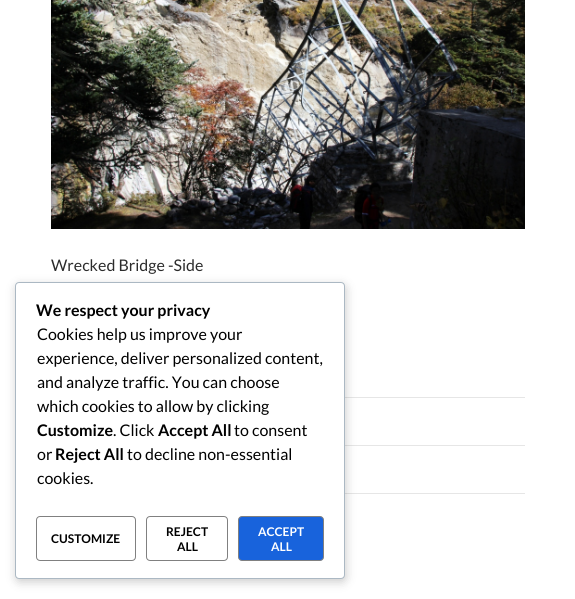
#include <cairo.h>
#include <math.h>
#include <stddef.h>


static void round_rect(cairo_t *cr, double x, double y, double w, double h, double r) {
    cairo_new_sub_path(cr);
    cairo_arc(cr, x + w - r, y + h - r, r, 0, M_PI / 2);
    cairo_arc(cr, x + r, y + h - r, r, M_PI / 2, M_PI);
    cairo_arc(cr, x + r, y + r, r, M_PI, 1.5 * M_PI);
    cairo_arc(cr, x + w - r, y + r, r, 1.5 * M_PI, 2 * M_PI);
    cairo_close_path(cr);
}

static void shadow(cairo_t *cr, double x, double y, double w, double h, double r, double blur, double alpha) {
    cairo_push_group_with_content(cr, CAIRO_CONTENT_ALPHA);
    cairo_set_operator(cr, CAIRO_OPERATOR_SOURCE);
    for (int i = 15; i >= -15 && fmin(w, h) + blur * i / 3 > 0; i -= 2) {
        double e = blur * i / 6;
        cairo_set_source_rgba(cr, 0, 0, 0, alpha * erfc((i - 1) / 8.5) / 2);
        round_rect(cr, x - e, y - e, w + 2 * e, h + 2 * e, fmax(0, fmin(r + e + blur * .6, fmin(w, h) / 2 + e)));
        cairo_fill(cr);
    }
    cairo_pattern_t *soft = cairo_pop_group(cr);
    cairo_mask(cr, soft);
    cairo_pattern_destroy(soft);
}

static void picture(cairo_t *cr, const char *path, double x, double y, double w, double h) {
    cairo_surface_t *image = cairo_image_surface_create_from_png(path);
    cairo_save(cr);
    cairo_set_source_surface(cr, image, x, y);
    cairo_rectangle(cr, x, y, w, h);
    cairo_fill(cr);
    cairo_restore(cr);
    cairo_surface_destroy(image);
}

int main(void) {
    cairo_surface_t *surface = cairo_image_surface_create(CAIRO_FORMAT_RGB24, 575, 599);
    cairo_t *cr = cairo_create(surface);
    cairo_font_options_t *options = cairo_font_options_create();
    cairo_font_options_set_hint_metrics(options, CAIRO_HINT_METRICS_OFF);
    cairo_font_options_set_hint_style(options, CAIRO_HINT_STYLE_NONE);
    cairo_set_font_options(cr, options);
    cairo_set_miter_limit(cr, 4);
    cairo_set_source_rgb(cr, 1, 1, 1);
    cairo_paint(cr);
    picture(cr, "img1.png", 51, 0, 474, 229);
    cairo_select_font_face(cr, "Lato", CAIRO_FONT_SLANT_NORMAL, CAIRO_FONT_WEIGHT_NORMAL);
    cairo_set_font_size(cr, 16);
    cairo_set_source_rgb(cr, 0.169, 0.169, 0.169);
    cairo_move_to(cr, 51, 271);
    cairo_show_text(cr, "Wrecked Bridge -Side");
    cairo_set_source_rgb(cr, 0.902, 0.902, 0.902);
    cairo_rectangle(cr, 345, 397, 180, 1);
    cairo_fill(cr);
    cairo_rectangle(cr, 345, 445, 180, 1);
    cairo_fill(cr);
    cairo_rectangle(cr, 345, 493, 180, 1);
    cairo_fill(cr);
    cairo_set_source_rgb(cr, 0, 0, 0);
    shadow(cr, 16, 285, 330, 297, 4, 5, 0.2);
    cairo_set_source_rgb(cr, 1, 1, 1);
    round_rect(cr, 15.5, 282.5, 329, 296, 3.5);
    cairo_fill_preserve(cr);
    cairo_set_source_rgb(cr, 0.671, 0.722, 0.765);
    cairo_set_line_width(cr, 1);
    cairo_stroke(cr);
    cairo_select_font_face(cr, "Lato", CAIRO_FONT_SLANT_NORMAL, CAIRO_FONT_WEIGHT_BOLD);
    cairo_set_source_rgb(cr, 0, 0, 0);
    cairo_move_to(cr, 36, 316);
    cairo_show_text(cr, "We respect your privacy");
    cairo_select_font_face(cr, "Lato", CAIRO_FONT_SLANT_NORMAL, CAIRO_FONT_WEIGHT_NORMAL);
    cairo_move_to(cr, 37, 340);
    cairo_show_text(cr, "Cookies help us improve your");
    cairo_move_to(cr, 37, 364);
    cairo_show_text(cr, "experience, deliver personalized content,");
    cairo_move_to(cr, 37, 388);
    cairo_show_text(cr, "and analyze traffic. You can choose");
    cairo_move_to(cr, 37, 412);
    cairo_show_text(cr, "which cookies to allow by clicking");
    cairo_select_font_face(cr, "Lato", CAIRO_FONT_SLANT_NORMAL, CAIRO_FONT_WEIGHT_BOLD);
    cairo_move_to(cr, 37, 436);
    cairo_show_text(cr, "Customize");
    cairo_select_font_face(cr, "Lato", CAIRO_FONT_SLANT_NORMAL, CAIRO_FONT_WEIGHT_NORMAL);
    cairo_move_to(cr, 113, 436);
    cairo_show_text(cr, ". Click");
    cairo_select_font_face(cr, "Lato", CAIRO_FONT_SLANT_NORMAL, CAIRO_FONT_WEIGHT_BOLD);
    cairo_move_to(cr, 158, 436);
    cairo_show_text(cr, "Accept All");
    cairo_select_font_face(cr, "Lato", CAIRO_FONT_SLANT_NORMAL, CAIRO_FONT_WEIGHT_NORMAL);
    cairo_move_to(cr, 234, 436);
    cairo_show_text(cr, "to consent");
    cairo_move_to(cr, 37, 460);
    cairo_show_text(cr, "or");
    cairo_select_font_face(cr, "Lato", CAIRO_FONT_SLANT_NORMAL, CAIRO_FONT_WEIGHT_BOLD);
    cairo_move_to(cr, 55, 460);
    cairo_show_text(cr, "Reject All");
    cairo_select_font_face(cr, "Lato", CAIRO_FONT_SLANT_NORMAL, CAIRO_FONT_WEIGHT_NORMAL);
    cairo_move_to(cr, 127, 460);
    cairo_show_text(cr, "to decline non-essential");
    cairo_move_to(cr, 37, 484);
    cairo_show_text(cr, "cookies.");
    round_rect(cr, 36.5, 516.5, 99, 44, 3.5);
    cairo_set_source_rgb(cr, 0.502, 0.502, 0.502);
    cairo_stroke(cr);
    cairo_select_font_face(cr, "Lato", CAIRO_FONT_SLANT_NORMAL, CAIRO_FONT_WEIGHT_BOLD);
    cairo_set_font_size(cr, 12);
    cairo_set_source_rgb(cr, 0, 0, 0);
    cairo_move_to(cr, 51, 543);
    cairo_show_text(cr, "CUSTOMIZE");
    round_rect(cr, 146.5, 516.5, 81, 44, 3.5);
    cairo_set_source_rgb(cr, 0.502, 0.502, 0.502);
    cairo_stroke(cr);
    cairo_set_source_rgb(cr, 0, 0, 0);
    cairo_move_to(cr, 166, 536);
    cairo_show_text(cr, "REJECT");
    cairo_move_to(cr, 177, 551);
    cairo_show_text(cr, "ALL");
    cairo_set_source_rgb(cr, 0.094, 0.388, 0.863);
    round_rect(cr, 238.5, 516.5, 85, 44, 3.5);
    cairo_fill_preserve(cr);
    cairo_set_source_rgb(cr, 0.502, 0.502, 0.502);
    cairo_stroke(cr);
    cairo_set_source_rgb(cr, 1, 1, 1);
    cairo_move_to(cr, 258, 536);
    cairo_show_text(cr, "ACCEPT");
    cairo_move_to(cr, 271, 551);
    cairo_show_text(cr, "ALL");
    cairo_surface_write_to_png(surface, "page.png");
    cairo_font_options_destroy(options);
    cairo_destroy(cr);
    cairo_surface_destroy(surface);
    return 0;
}
